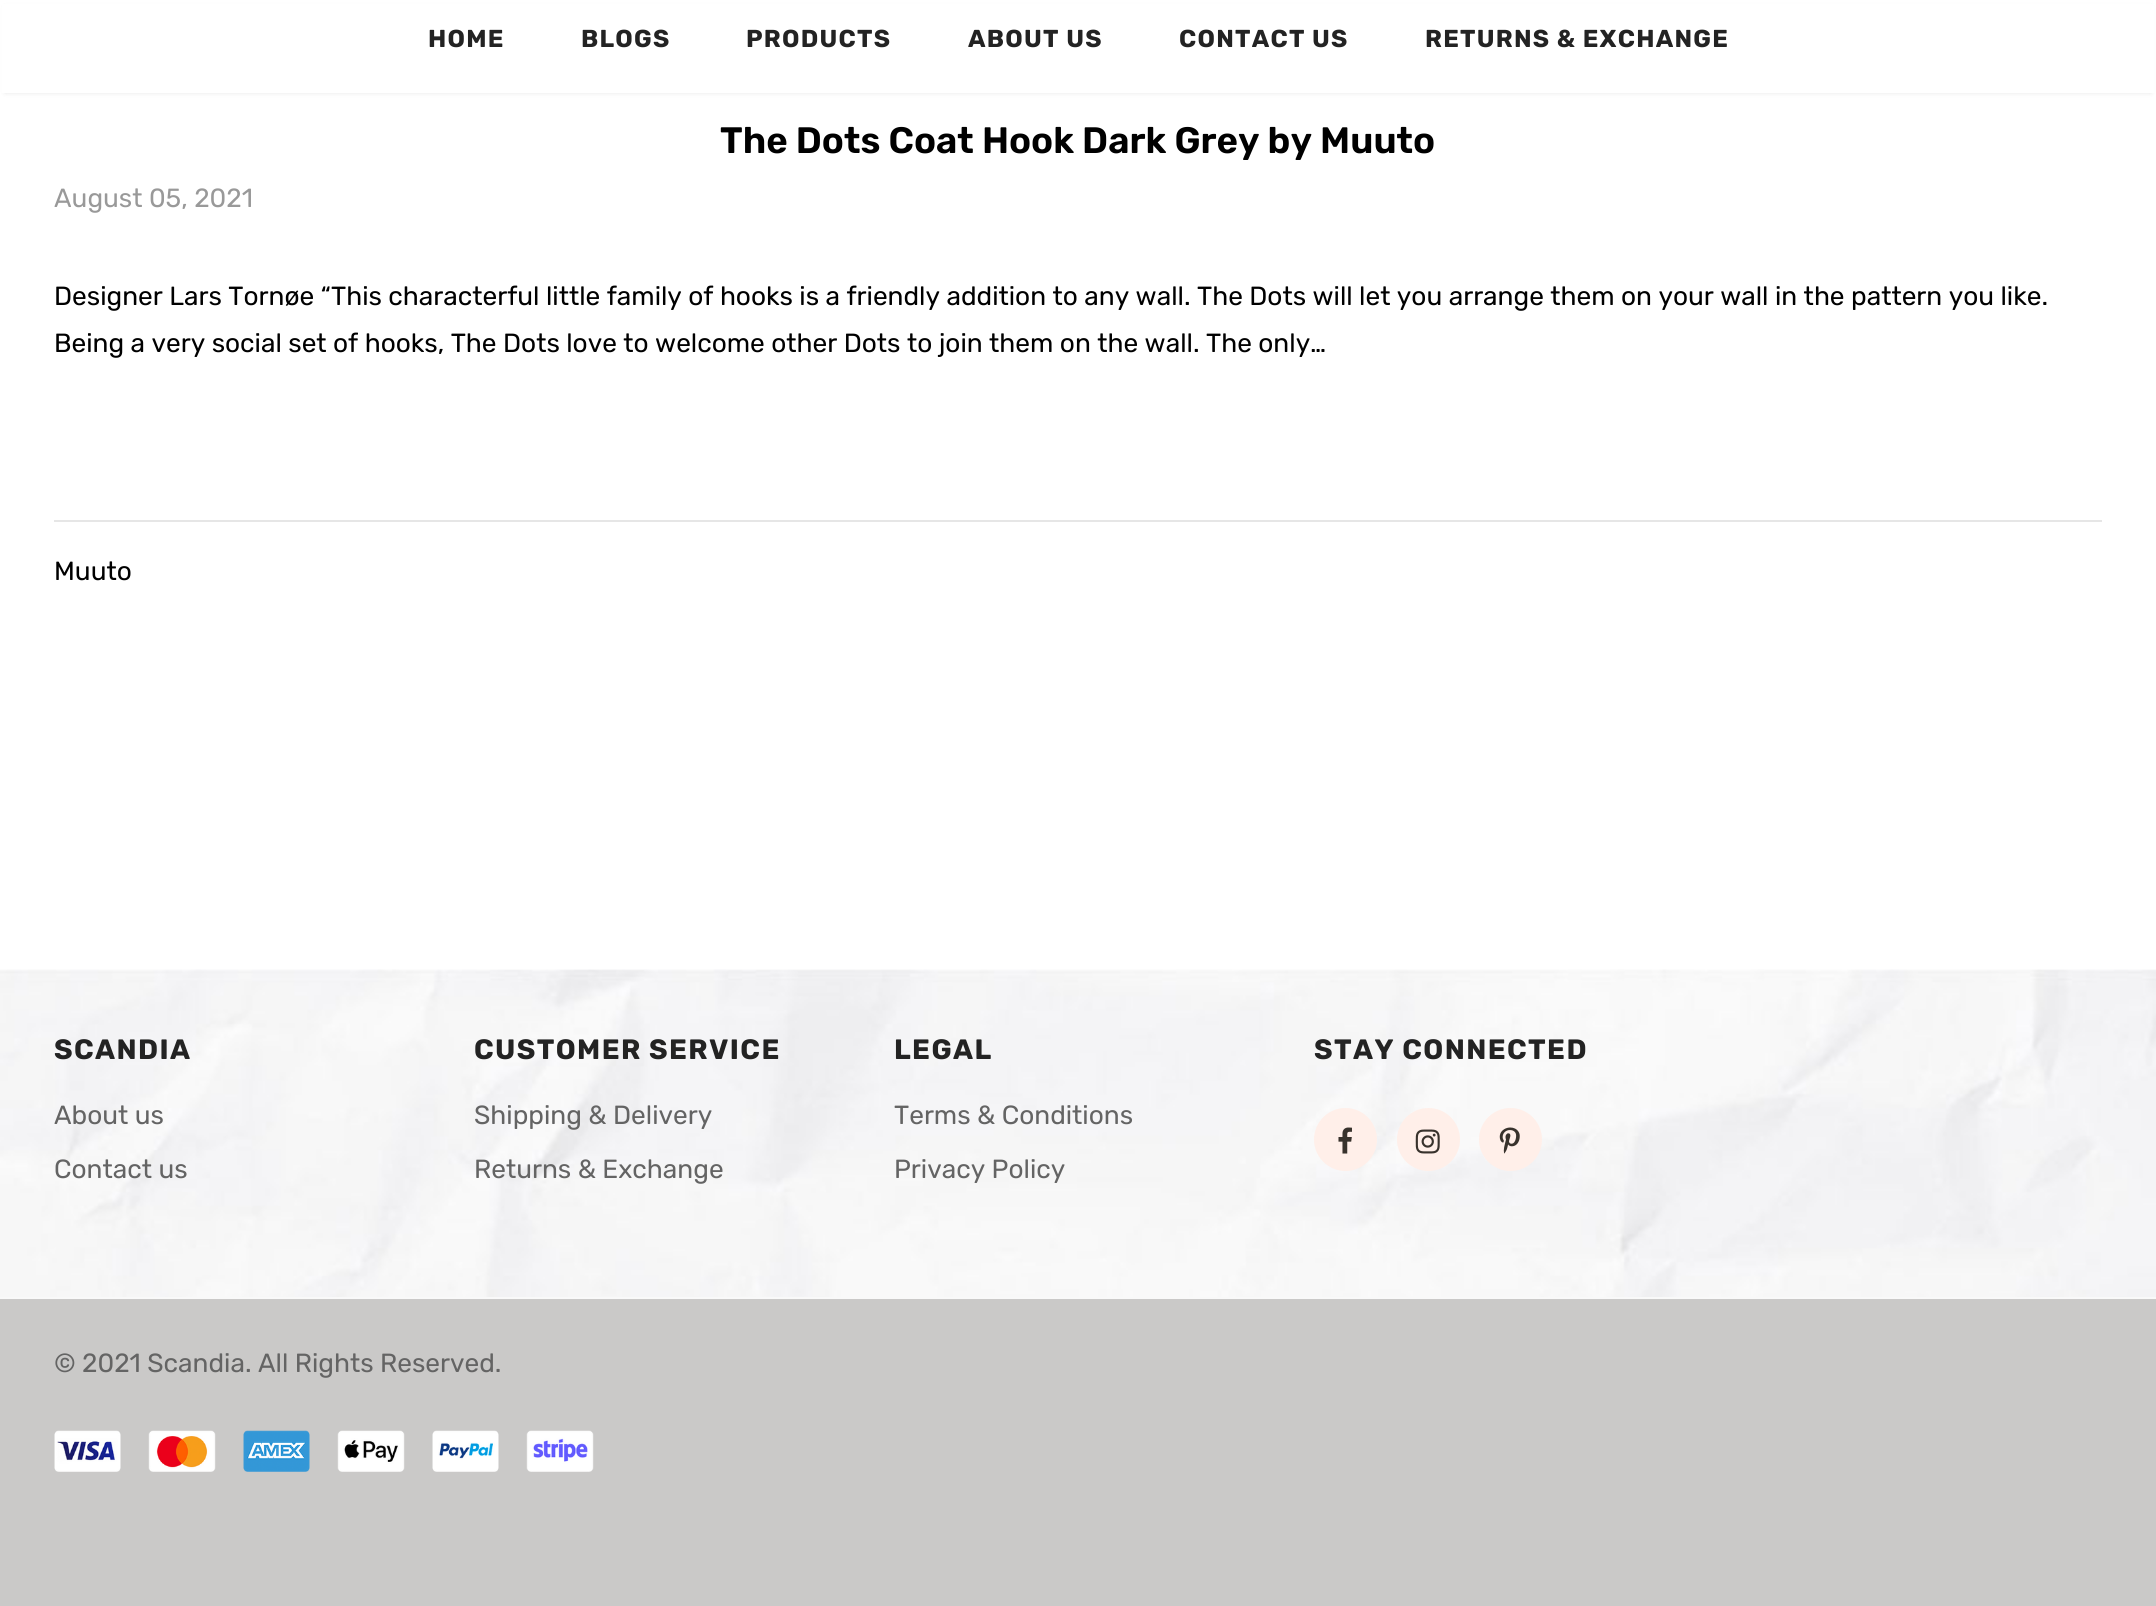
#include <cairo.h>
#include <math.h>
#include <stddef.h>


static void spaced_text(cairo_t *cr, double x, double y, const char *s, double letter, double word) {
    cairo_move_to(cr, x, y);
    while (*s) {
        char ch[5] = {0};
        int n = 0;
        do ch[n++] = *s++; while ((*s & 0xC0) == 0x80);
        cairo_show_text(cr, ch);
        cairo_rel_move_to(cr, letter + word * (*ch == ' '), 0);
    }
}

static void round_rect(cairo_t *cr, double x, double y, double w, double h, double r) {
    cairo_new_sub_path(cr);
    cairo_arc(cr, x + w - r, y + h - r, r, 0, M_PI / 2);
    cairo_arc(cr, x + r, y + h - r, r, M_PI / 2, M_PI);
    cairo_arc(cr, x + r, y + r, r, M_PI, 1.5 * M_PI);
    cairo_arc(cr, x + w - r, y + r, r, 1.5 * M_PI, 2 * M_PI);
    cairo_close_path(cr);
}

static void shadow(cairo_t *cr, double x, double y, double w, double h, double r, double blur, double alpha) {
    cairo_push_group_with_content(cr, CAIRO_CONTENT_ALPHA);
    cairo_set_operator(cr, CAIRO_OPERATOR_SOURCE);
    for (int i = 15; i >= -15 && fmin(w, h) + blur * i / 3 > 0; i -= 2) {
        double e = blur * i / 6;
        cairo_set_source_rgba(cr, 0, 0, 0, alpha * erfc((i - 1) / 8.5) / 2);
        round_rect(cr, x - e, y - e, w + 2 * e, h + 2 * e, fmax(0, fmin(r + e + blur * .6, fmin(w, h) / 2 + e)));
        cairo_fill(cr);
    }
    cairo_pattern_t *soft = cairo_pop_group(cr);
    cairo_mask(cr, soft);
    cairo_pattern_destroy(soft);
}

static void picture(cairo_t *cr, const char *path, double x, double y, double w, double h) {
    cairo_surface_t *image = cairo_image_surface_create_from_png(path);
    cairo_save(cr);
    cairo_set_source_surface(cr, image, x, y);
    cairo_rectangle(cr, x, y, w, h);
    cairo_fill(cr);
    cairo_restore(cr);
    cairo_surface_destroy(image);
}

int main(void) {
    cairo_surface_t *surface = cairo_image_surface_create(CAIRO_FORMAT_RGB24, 2156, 1606);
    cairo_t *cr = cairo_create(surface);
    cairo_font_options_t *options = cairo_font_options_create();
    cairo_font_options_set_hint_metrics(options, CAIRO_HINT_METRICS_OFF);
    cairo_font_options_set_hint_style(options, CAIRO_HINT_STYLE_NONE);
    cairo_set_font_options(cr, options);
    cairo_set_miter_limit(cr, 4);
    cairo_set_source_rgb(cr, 1, 1, 1);
    cairo_paint(cr);
    cairo_set_source_rgb(cr, 0, 0, 0);
    shadow(cr, 5, 7, 2146, 86, 0, 2.5, 0.1);
    cairo_set_source_rgb(cr, 1, 1, 1);
    cairo_rectangle(cr, 2, 4, 2152, 89);
    cairo_fill(cr);
    cairo_select_font_face(cr, "Rubik", CAIRO_FONT_SLANT_NORMAL, CAIRO_FONT_WEIGHT_BOLD);
    cairo_set_font_size(cr, 24.5);
    cairo_set_source_rgb(cr, 0.137, 0.137, 0.137);
    spaced_text(cr, 428, 47, "HOME", 1.25, 0);
    spaced_text(cr, 581, 47, "BLOGS", 1.25, 0);
    spaced_text(cr, 746, 47, "PRODUCTS", 1.25, 0);
    spaced_text(cr, 968, 47, "ABOUT US", 1.25, 0);
    spaced_text(cr, 1179, 47, "CONTACT US", 1.25, 0);
    spaced_text(cr, 1425, 47, "RETURNS & EXCHANGE", 1.25, 0);
    cairo_select_font_face(cr, "Rubik SemiBold", CAIRO_FONT_SLANT_NORMAL, CAIRO_FONT_WEIGHT_NORMAL);
    cairo_set_font_size(cr, 36.75);
    cairo_set_source_rgb(cr, 0, 0, 0);
    cairo_move_to(cr, 720, 153);
    cairo_show_text(cr, "The Dots Coat Hook Dark Grey by Muuto");
    cairo_select_font_face(cr, "Rubik", CAIRO_FONT_SLANT_NORMAL, CAIRO_FONT_WEIGHT_NORMAL);
    cairo_set_font_size(cr, 26.25);
    cairo_set_source_rgb(cr, 0.6, 0.6, 0.6);
    cairo_move_to(cr, 54, 207);
    cairo_show_text(cr, "August 05, 2021");
    cairo_set_source_rgb(cr, 0, 0, 0);
    cairo_move_to(cr, 54, 305);
    cairo_show_text(cr, "Designer Lars Tornøe “This characterful little family of hooks is a friendly addition to any wall. The Dots will let you arrange them on your wall in the pattern you like.");
    cairo_move_to(cr, 54, 352);
    cairo_show_text(cr, "Being a very social set of hooks, The Dots love to welcome other Dots to join them on the wall. The only…");
    cairo_set_source_rgb(cr, 0.902, 0.902, 0.902);
    cairo_rectangle(cr, 54, 520, 2048, 2);
    cairo_fill(cr);
    cairo_set_source_rgb(cr, 0, 0, 0);
    cairo_move_to(cr, 54, 580);
    cairo_show_text(cr, "Muuto");
    picture(cr, "img1.png", 0, 969, 2156, 328);
    cairo_select_font_face(cr, "Rubik", CAIRO_FONT_SLANT_NORMAL, CAIRO_FONT_WEIGHT_BOLD);
    cairo_set_font_size(cr, 28);
    cairo_set_source_rgb(cr, 0.137, 0.137, 0.137);
    spaced_text(cr, 54, 1059, "SCANDIA", 1.4, 0);
    cairo_select_font_face(cr, "Rubik", CAIRO_FONT_SLANT_NORMAL, CAIRO_FONT_WEIGHT_NORMAL);
    cairo_set_font_size(cr, 26.25);
    cairo_set_source_rgb(cr, 0.392, 0.392, 0.392);
    cairo_move_to(cr, 54, 1124);
    cairo_show_text(cr, "About us");
    cairo_move_to(cr, 54, 1178);
    cairo_show_text(cr, "Contact us");
    cairo_select_font_face(cr, "Rubik", CAIRO_FONT_SLANT_NORMAL, CAIRO_FONT_WEIGHT_BOLD);
    cairo_set_font_size(cr, 28);
    cairo_set_source_rgb(cr, 0.137, 0.137, 0.137);
    spaced_text(cr, 474, 1059, "CUSTOMER SERVICE", 1.4, 0);
    cairo_select_font_face(cr, "Rubik", CAIRO_FONT_SLANT_NORMAL, CAIRO_FONT_WEIGHT_NORMAL);
    cairo_set_font_size(cr, 26.25);
    cairo_set_source_rgb(cr, 0.392, 0.392, 0.392);
    cairo_move_to(cr, 474, 1124);
    cairo_show_text(cr, "Shipping & Delivery");
    cairo_move_to(cr, 474, 1178);
    cairo_show_text(cr, "Returns & Exchange");
    cairo_select_font_face(cr, "Rubik", CAIRO_FONT_SLANT_NORMAL, CAIRO_FONT_WEIGHT_BOLD);
    cairo_set_font_size(cr, 28);
    cairo_set_source_rgb(cr, 0.137, 0.137, 0.137);
    spaced_text(cr, 894, 1059, "LEGAL", 1.4, 0);
    cairo_select_font_face(cr, "Rubik", CAIRO_FONT_SLANT_NORMAL, CAIRO_FONT_WEIGHT_NORMAL);
    cairo_set_font_size(cr, 26.25);
    cairo_set_source_rgb(cr, 0.392, 0.392, 0.392);
    cairo_move_to(cr, 894, 1124);
    cairo_show_text(cr, "Terms & Conditions");
    cairo_move_to(cr, 894, 1178);
    cairo_show_text(cr, "Privacy Policy");
    cairo_select_font_face(cr, "Rubik", CAIRO_FONT_SLANT_NORMAL, CAIRO_FONT_WEIGHT_BOLD);
    cairo_set_font_size(cr, 28);
    cairo_set_source_rgb(cr, 0.137, 0.137, 0.137);
    spaced_text(cr, 1314, 1059, "STAY CONNECTED", 1.4, 0);
    cairo_set_source_rgb(cr, 1, 0.937, 0.914);
    cairo_new_path(cr);
    cairo_arc(cr, 1345.5, 1139.5, 31.5, 0, 2 * M_PI);
    cairo_fill(cr);
    picture(cr, "img2.png", 1338, 1127, 14, 27);
    cairo_arc(cr, 1428.5, 1139.5, 31.5, 0, 2 * M_PI);
    cairo_fill(cr);
    picture(cr, "img3.png", 1415, 1129, 25, 25);
    cairo_arc(cr, 1510.5, 1139.5, 31.5, 0, 2 * M_PI);
    cairo_fill(cr);
    picture(cr, "img4.png", 1499, 1127, 21, 27);
    cairo_set_source_rgb(cr, 0.792, 0.788, 0.784);
    cairo_rectangle(cr, 0, 1299, 2156, 307);
    cairo_fill(cr);
    cairo_set_source_rgb(cr, 0.973, 0.973, 0.973);
    cairo_rectangle(cr, 0, 1297, 2156, 2);
    cairo_fill(cr);
    cairo_select_font_face(cr, "Rubik", CAIRO_FONT_SLANT_NORMAL, CAIRO_FONT_WEIGHT_NORMAL);
    cairo_set_font_size(cr, 26.25);
    cairo_set_source_rgb(cr, 0.392, 0.392, 0.392);
    cairo_move_to(cr, 54, 1372);
    cairo_show_text(cr, "© 2021 Scandia. All Rights Reserved.");
    picture(cr, "img5.png", 54, 1430, 67, 42);
    picture(cr, "img6.png", 148, 1430, 68, 42);
    picture(cr, "img7.png", 243, 1430, 67, 42);
    picture(cr, "img8.png", 337, 1430, 68, 42);
    picture(cr, "img9.png", 432, 1430, 67, 42);
    picture(cr, "img10.png", 526, 1430, 68, 42);
    cairo_surface_write_to_png(surface, "page.png");
    cairo_font_options_destroy(options);
    cairo_destroy(cr);
    cairo_surface_destroy(surface);
    return 0;
}
